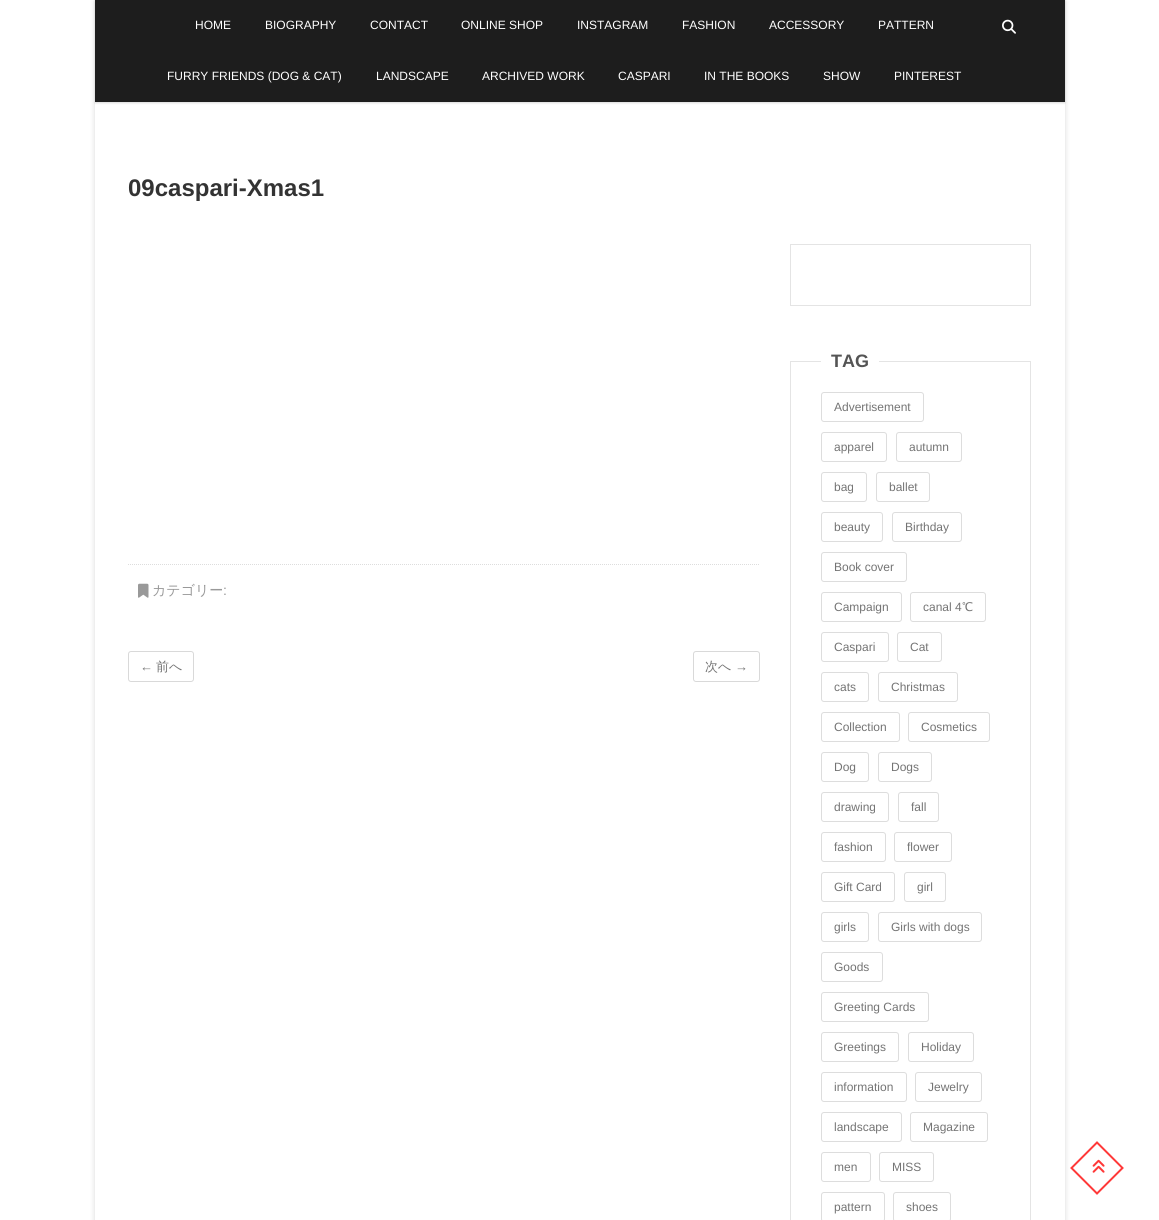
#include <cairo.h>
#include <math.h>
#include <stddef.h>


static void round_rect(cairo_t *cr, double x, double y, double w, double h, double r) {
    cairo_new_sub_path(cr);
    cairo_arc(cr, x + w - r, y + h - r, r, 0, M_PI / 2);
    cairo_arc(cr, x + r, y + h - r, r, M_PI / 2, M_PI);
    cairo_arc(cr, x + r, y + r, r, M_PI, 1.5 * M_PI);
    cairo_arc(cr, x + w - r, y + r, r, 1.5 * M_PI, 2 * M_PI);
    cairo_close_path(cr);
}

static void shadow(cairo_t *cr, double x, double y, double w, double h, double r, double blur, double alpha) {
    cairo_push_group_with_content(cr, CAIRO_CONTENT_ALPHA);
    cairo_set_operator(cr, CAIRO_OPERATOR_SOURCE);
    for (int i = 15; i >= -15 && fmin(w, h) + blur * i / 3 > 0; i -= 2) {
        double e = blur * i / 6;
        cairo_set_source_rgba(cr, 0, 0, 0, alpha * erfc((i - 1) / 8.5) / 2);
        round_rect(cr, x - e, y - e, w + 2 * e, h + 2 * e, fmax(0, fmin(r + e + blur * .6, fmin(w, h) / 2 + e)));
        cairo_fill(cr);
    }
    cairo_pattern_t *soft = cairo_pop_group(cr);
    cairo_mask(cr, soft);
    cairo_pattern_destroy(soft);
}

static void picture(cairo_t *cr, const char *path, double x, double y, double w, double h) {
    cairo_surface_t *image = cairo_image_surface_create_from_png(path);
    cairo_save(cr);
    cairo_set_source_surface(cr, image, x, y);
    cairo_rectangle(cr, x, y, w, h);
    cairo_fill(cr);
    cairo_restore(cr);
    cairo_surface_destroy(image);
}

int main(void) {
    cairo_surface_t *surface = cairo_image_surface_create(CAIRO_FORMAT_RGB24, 1159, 1220);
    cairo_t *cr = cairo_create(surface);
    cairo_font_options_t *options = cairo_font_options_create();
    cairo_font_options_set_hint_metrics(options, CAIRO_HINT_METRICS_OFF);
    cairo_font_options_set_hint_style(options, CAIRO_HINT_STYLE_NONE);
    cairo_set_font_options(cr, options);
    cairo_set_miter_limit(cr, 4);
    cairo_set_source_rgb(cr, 1, 1, 1);
    cairo_paint(cr);
    cairo_save(cr);
    cairo_set_fill_rule(cr, CAIRO_FILL_RULE_EVEN_ODD);
    cairo_new_path(cr);
    cairo_move_to(cr, 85, 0);
    cairo_line_to(cr, 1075, 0);
    cairo_line_to(cr, 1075, 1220);
    cairo_line_to(cr, 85, 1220);
    cairo_close_path(cr);
    cairo_move_to(cr, 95, 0);
    cairo_line_to(cr, 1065, 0);
    cairo_line_to(cr, 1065, 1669);
    cairo_line_to(cr, 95, 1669);
    cairo_close_path(cr);
    cairo_clip(cr);
    cairo_set_source_rgb(cr, 0, 0, 0);
    shadow(cr, 95, 1, 970, 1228, 0, 3, 0.15);
    cairo_restore(cr);
    cairo_set_source_rgb(cr, 0, 0, 0);
    shadow(cr, 95, 1, 970, 102, 0, 1, 0.15);
    cairo_set_source_rgb(cr, 0.114, 0.114, 0.114);
    cairo_rectangle(cr, 95, 0, 970, 102);
    cairo_fill(cr);
    cairo_select_font_face(cr, "Liberation Sans", CAIRO_FONT_SLANT_NORMAL, CAIRO_FONT_WEIGHT_NORMAL);
    cairo_set_font_size(cr, 12);
    cairo_set_source_rgb(cr, 1, 1, 1);
    cairo_move_to(cr, 195, 29);
    cairo_show_text(cr, "HOME");
    cairo_move_to(cr, 265, 29);
    cairo_show_text(cr, "BIOGRAPHY");
    cairo_move_to(cr, 370, 29);
    cairo_show_text(cr, "CONTACT");
    cairo_move_to(cr, 461, 29);
    cairo_show_text(cr, "ONLINE SHOP");
    cairo_move_to(cr, 577, 29);
    cairo_show_text(cr, "INSTAGRAM");
    cairo_move_to(cr, 682, 29);
    cairo_show_text(cr, "FASHION");
    cairo_move_to(cr, 769, 29);
    cairo_show_text(cr, "ACCESSORY");
    cairo_move_to(cr, 878, 29);
    cairo_show_text(cr, "PATTERN");
    cairo_move_to(cr, 167, 80);
    cairo_show_text(cr, "FURRY FRIENDS (DOG & CAT)");
    cairo_move_to(cr, 376, 80);
    cairo_show_text(cr, "LANDSCAPE");
    cairo_move_to(cr, 482, 80);
    cairo_show_text(cr, "ARCHIVED WORK");
    cairo_move_to(cr, 618, 80);
    cairo_show_text(cr, "CASPARI");
    cairo_move_to(cr, 704, 80);
    cairo_show_text(cr, "IN THE BOOKS");
    cairo_move_to(cr, 823, 80);
    cairo_show_text(cr, "SHOW");
    cairo_move_to(cr, 894, 80);
    cairo_show_text(cr, "PINTEREST");
    picture(cr, "img1.png", 1002, 19, 14, 15);
    cairo_select_font_face(cr, "Liberation Sans", CAIRO_FONT_SLANT_NORMAL, CAIRO_FONT_WEIGHT_BOLD);
    cairo_set_font_size(cr, 24);
    cairo_set_source_rgb(cr, 0.2, 0.2, 0.2);
    cairo_move_to(cr, 128, 196);
    cairo_show_text(cr, "09caspari-Xmas1");
    cairo_new_path(cr);
    cairo_move_to(cr, 128, 564.5);
    cairo_line_to(cr, 760, 564.5);
    cairo_set_source_rgb(cr, 0.867, 0.867, 0.867);
    cairo_set_line_width(cr, 1);
    cairo_set_dash(cr, (double[]){1, 1}, 2, 0);
    cairo_stroke(cr);
    picture(cr, "img2.png", 138, 583, 11, 15);
    cairo_select_font_face(cr, "WenQuanYi Zen Hei Medium", CAIRO_FONT_SLANT_NORMAL, CAIRO_FONT_WEIGHT_NORMAL);
    cairo_set_font_size(cr, 14);
    cairo_set_source_rgb(cr, 0.6, 0.6, 0.6);
    cairo_move_to(cr, 152, 595);
    cairo_show_text(cr, "カテゴリー");
    cairo_select_font_face(cr, "Liberation Sans", CAIRO_FONT_SLANT_NORMAL, CAIRO_FONT_WEIGHT_NORMAL);
    cairo_move_to(cr, 223, 595);
    cairo_show_text(cr, ":");
    round_rect(cr, 128.5, 651.5, 65, 30, 2.5);
    cairo_set_source_rgb(cr, 0.851, 0.851, 0.851);
    cairo_set_dash(cr, NULL, 0, 0);
    cairo_stroke(cr);
    cairo_set_font_size(cr, 13);
    cairo_set_source_rgb(cr, 0.455, 0.455, 0.455);
    cairo_move_to(cr, 140, 671);
    cairo_show_text(cr, "←");
    cairo_select_font_face(cr, "WenQuanYi Zen Hei Medium", CAIRO_FONT_SLANT_NORMAL, CAIRO_FONT_WEIGHT_NORMAL);
    cairo_move_to(cr, 156, 671);
    cairo_show_text(cr, "前へ");
    round_rect(cr, 693.5, 651.5, 66, 30, 2.5);
    cairo_set_source_rgb(cr, 0.851, 0.851, 0.851);
    cairo_stroke(cr);
    cairo_set_source_rgb(cr, 0.455, 0.455, 0.455);
    cairo_move_to(cr, 705, 671);
    cairo_show_text(cr, "次へ");
    cairo_select_font_face(cr, "Liberation Sans", CAIRO_FONT_SLANT_NORMAL, CAIRO_FONT_WEIGHT_NORMAL);
    cairo_move_to(cr, 735, 671);
    cairo_show_text(cr, "→");
    cairo_rectangle(cr, 790.5, 244.5, 240, 61);
    cairo_set_source_rgb(cr, 0.894, 0.894, 0.894);
    cairo_stroke(cr);
    cairo_rectangle(cr, 790.5, 361.5, 240, 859);
    cairo_stroke(cr);
    cairo_set_source_rgb(cr, 1, 1, 1);
    cairo_rectangle(cr, 821, 361, 58, 1);
    cairo_fill(cr);
    cairo_select_font_face(cr, "Liberation Sans", CAIRO_FONT_SLANT_NORMAL, CAIRO_FONT_WEIGHT_BOLD);
    cairo_set_font_size(cr, 18);
    cairo_set_source_rgb(cr, 0.329, 0.329, 0.329);
    cairo_move_to(cr, 831, 367);
    cairo_show_text(cr, "TAG");
    round_rect(cr, 821.5, 392.5, 102, 29, 2.5);
    cairo_set_source_rgb(cr, 0.867, 0.867, 0.867);
    cairo_stroke(cr);
    cairo_select_font_face(cr, "Liberation Sans", CAIRO_FONT_SLANT_NORMAL, CAIRO_FONT_WEIGHT_NORMAL);
    cairo_set_font_size(cr, 12);
    cairo_set_source_rgb(cr, 0.455, 0.455, 0.455);
    cairo_move_to(cr, 834, 411);
    cairo_show_text(cr, "Advertisement");
    round_rect(cr, 821.5, 432.5, 65, 29, 2.5);
    cairo_set_source_rgb(cr, 0.867, 0.867, 0.867);
    cairo_stroke(cr);
    cairo_set_source_rgb(cr, 0.455, 0.455, 0.455);
    cairo_move_to(cr, 834, 451);
    cairo_show_text(cr, "apparel");
    round_rect(cr, 896.5, 432.5, 65, 29, 2.5);
    cairo_set_source_rgb(cr, 0.867, 0.867, 0.867);
    cairo_stroke(cr);
    cairo_set_source_rgb(cr, 0.455, 0.455, 0.455);
    cairo_move_to(cr, 909, 451);
    cairo_show_text(cr, "autumn");
    round_rect(cr, 821.5, 472.5, 45, 29, 2.5);
    cairo_set_source_rgb(cr, 0.867, 0.867, 0.867);
    cairo_stroke(cr);
    cairo_set_source_rgb(cr, 0.455, 0.455, 0.455);
    cairo_move_to(cr, 834, 491);
    cairo_show_text(cr, "bag");
    round_rect(cr, 876.5, 472.5, 53, 29, 2.5);
    cairo_set_source_rgb(cr, 0.867, 0.867, 0.867);
    cairo_stroke(cr);
    cairo_set_source_rgb(cr, 0.455, 0.455, 0.455);
    cairo_move_to(cr, 889, 491);
    cairo_show_text(cr, "ballet");
    round_rect(cr, 821.5, 512.5, 61, 29, 2.5);
    cairo_set_source_rgb(cr, 0.867, 0.867, 0.867);
    cairo_stroke(cr);
    cairo_set_source_rgb(cr, 0.455, 0.455, 0.455);
    cairo_move_to(cr, 834, 531);
    cairo_show_text(cr, "beauty");
    round_rect(cr, 892.5, 512.5, 69, 29, 2.5);
    cairo_set_source_rgb(cr, 0.867, 0.867, 0.867);
    cairo_stroke(cr);
    cairo_set_source_rgb(cr, 0.455, 0.455, 0.455);
    cairo_move_to(cr, 905, 531);
    cairo_show_text(cr, "Birthday");
    round_rect(cr, 821.5, 552.5, 85, 29, 2.5);
    cairo_set_source_rgb(cr, 0.867, 0.867, 0.867);
    cairo_stroke(cr);
    cairo_set_source_rgb(cr, 0.455, 0.455, 0.455);
    cairo_move_to(cr, 834, 571);
    cairo_show_text(cr, "Book cover");
    round_rect(cr, 821.5, 592.5, 80, 29, 2.5);
    cairo_set_source_rgb(cr, 0.867, 0.867, 0.867);
    cairo_stroke(cr);
    cairo_set_source_rgb(cr, 0.455, 0.455, 0.455);
    cairo_move_to(cr, 834, 611);
    cairo_show_text(cr, "Campaign");
    round_rect(cr, 910.5, 592.5, 75, 29, 2.5);
    cairo_set_source_rgb(cr, 0.867, 0.867, 0.867);
    cairo_stroke(cr);
    cairo_set_source_rgb(cr, 0.455, 0.455, 0.455);
    cairo_move_to(cr, 923, 611);
    cairo_show_text(cr, "canal 4");
    cairo_select_font_face(cr, "WenQuanYi Zen Hei Medium", CAIRO_FONT_SLANT_NORMAL, CAIRO_FONT_WEIGHT_NORMAL);
    cairo_move_to(cr, 962, 611);
    cairo_show_text(cr, "℃");
    round_rect(cr, 821.5, 632.5, 67, 29, 2.5);
    cairo_set_source_rgb(cr, 0.867, 0.867, 0.867);
    cairo_stroke(cr);
    cairo_select_font_face(cr, "Liberation Sans", CAIRO_FONT_SLANT_NORMAL, CAIRO_FONT_WEIGHT_NORMAL);
    cairo_set_source_rgb(cr, 0.455, 0.455, 0.455);
    cairo_move_to(cr, 834, 651);
    cairo_show_text(cr, "Caspari");
    round_rect(cr, 897.5, 632.5, 44, 29, 2.5);
    cairo_set_source_rgb(cr, 0.867, 0.867, 0.867);
    cairo_stroke(cr);
    cairo_set_source_rgb(cr, 0.455, 0.455, 0.455);
    cairo_move_to(cr, 910, 651);
    cairo_show_text(cr, "Cat");
    round_rect(cr, 821.5, 672.5, 47, 29, 2.5);
    cairo_set_source_rgb(cr, 0.867, 0.867, 0.867);
    cairo_stroke(cr);
    cairo_set_source_rgb(cr, 0.455, 0.455, 0.455);
    cairo_move_to(cr, 834, 691);
    cairo_show_text(cr, "cats");
    round_rect(cr, 878.5, 672.5, 79, 29, 2.5);
    cairo_set_source_rgb(cr, 0.867, 0.867, 0.867);
    cairo_stroke(cr);
    cairo_set_source_rgb(cr, 0.455, 0.455, 0.455);
    cairo_move_to(cr, 891, 691);
    cairo_show_text(cr, "Christmas");
    round_rect(cr, 821.5, 712.5, 78, 29, 2.5);
    cairo_set_source_rgb(cr, 0.867, 0.867, 0.867);
    cairo_stroke(cr);
    cairo_set_source_rgb(cr, 0.455, 0.455, 0.455);
    cairo_move_to(cr, 834, 731);
    cairo_show_text(cr, "Collection");
    round_rect(cr, 908.5, 712.5, 81, 29, 2.5);
    cairo_set_source_rgb(cr, 0.867, 0.867, 0.867);
    cairo_stroke(cr);
    cairo_set_source_rgb(cr, 0.455, 0.455, 0.455);
    cairo_move_to(cr, 921, 731);
    cairo_show_text(cr, "Cosmetics");
    round_rect(cr, 821.5, 752.5, 47, 29, 2.5);
    cairo_set_source_rgb(cr, 0.867, 0.867, 0.867);
    cairo_stroke(cr);
    cairo_set_source_rgb(cr, 0.455, 0.455, 0.455);
    cairo_move_to(cr, 834, 771);
    cairo_show_text(cr, "Dog");
    round_rect(cr, 878.5, 752.5, 53, 29, 2.5);
    cairo_set_source_rgb(cr, 0.867, 0.867, 0.867);
    cairo_stroke(cr);
    cairo_set_source_rgb(cr, 0.455, 0.455, 0.455);
    cairo_move_to(cr, 891, 771);
    cairo_show_text(cr, "Dogs");
    round_rect(cr, 821.5, 792.5, 67, 29, 2.5);
    cairo_set_source_rgb(cr, 0.867, 0.867, 0.867);
    cairo_stroke(cr);
    cairo_set_source_rgb(cr, 0.455, 0.455, 0.455);
    cairo_move_to(cr, 834, 811);
    cairo_show_text(cr, "drawing");
    round_rect(cr, 898.5, 792.5, 40, 29, 2.5);
    cairo_set_source_rgb(cr, 0.867, 0.867, 0.867);
    cairo_stroke(cr);
    cairo_set_source_rgb(cr, 0.455, 0.455, 0.455);
    cairo_move_to(cr, 911, 811);
    cairo_show_text(cr, "fall");
    round_rect(cr, 821.5, 832.5, 64, 29, 2.5);
    cairo_set_source_rgb(cr, 0.867, 0.867, 0.867);
    cairo_stroke(cr);
    cairo_set_source_rgb(cr, 0.455, 0.455, 0.455);
    cairo_move_to(cr, 834, 851);
    cairo_show_text(cr, "fashion");
    round_rect(cr, 894.5, 832.5, 57, 29, 2.5);
    cairo_set_source_rgb(cr, 0.867, 0.867, 0.867);
    cairo_stroke(cr);
    cairo_set_source_rgb(cr, 0.455, 0.455, 0.455);
    cairo_move_to(cr, 907, 851);
    cairo_show_text(cr, "flower");
    round_rect(cr, 821.5, 872.5, 73, 29, 2.5);
    cairo_set_source_rgb(cr, 0.867, 0.867, 0.867);
    cairo_stroke(cr);
    cairo_set_source_rgb(cr, 0.455, 0.455, 0.455);
    cairo_move_to(cr, 834, 891);
    cairo_show_text(cr, "Gift Card");
    round_rect(cr, 904.5, 872.5, 41, 29, 2.5);
    cairo_set_source_rgb(cr, 0.867, 0.867, 0.867);
    cairo_stroke(cr);
    cairo_set_source_rgb(cr, 0.455, 0.455, 0.455);
    cairo_move_to(cr, 917, 891);
    cairo_show_text(cr, "girl");
    round_rect(cr, 821.5, 912.5, 47, 29, 2.5);
    cairo_set_source_rgb(cr, 0.867, 0.867, 0.867);
    cairo_stroke(cr);
    cairo_set_source_rgb(cr, 0.455, 0.455, 0.455);
    cairo_move_to(cr, 834, 931);
    cairo_show_text(cr, "girls");
    round_rect(cr, 878.5, 912.5, 103, 29, 2.5);
    cairo_set_source_rgb(cr, 0.867, 0.867, 0.867);
    cairo_stroke(cr);
    cairo_set_source_rgb(cr, 0.455, 0.455, 0.455);
    cairo_move_to(cr, 891, 931);
    cairo_show_text(cr, "Girls with dogs");
    round_rect(cr, 821.5, 952.5, 61, 29, 2.5);
    cairo_set_source_rgb(cr, 0.867, 0.867, 0.867);
    cairo_stroke(cr);
    cairo_set_source_rgb(cr, 0.455, 0.455, 0.455);
    cairo_move_to(cr, 834, 971);
    cairo_show_text(cr, "Goods");
    round_rect(cr, 821.5, 992.5, 107, 29, 2.5);
    cairo_set_source_rgb(cr, 0.867, 0.867, 0.867);
    cairo_stroke(cr);
    cairo_set_source_rgb(cr, 0.455, 0.455, 0.455);
    cairo_move_to(cr, 834, 1011);
    cairo_show_text(cr, "Greeting Cards");
    round_rect(cr, 821.5, 1032.5, 77, 29, 2.5);
    cairo_set_source_rgb(cr, 0.867, 0.867, 0.867);
    cairo_stroke(cr);
    cairo_set_source_rgb(cr, 0.455, 0.455, 0.455);
    cairo_move_to(cr, 834, 1051);
    cairo_show_text(cr, "Greetings");
    round_rect(cr, 908.5, 1032.5, 65, 29, 2.5);
    cairo_set_source_rgb(cr, 0.867, 0.867, 0.867);
    cairo_stroke(cr);
    cairo_set_source_rgb(cr, 0.455, 0.455, 0.455);
    cairo_move_to(cr, 921, 1051);
    cairo_show_text(cr, "Holiday");
    round_rect(cr, 821.5, 1072.5, 85, 29, 2.5);
    cairo_set_source_rgb(cr, 0.867, 0.867, 0.867);
    cairo_stroke(cr);
    cairo_set_source_rgb(cr, 0.455, 0.455, 0.455);
    cairo_move_to(cr, 834, 1091);
    cairo_show_text(cr, "information");
    round_rect(cr, 915.5, 1072.5, 66, 29, 2.5);
    cairo_set_source_rgb(cr, 0.867, 0.867, 0.867);
    cairo_stroke(cr);
    cairo_set_source_rgb(cr, 0.455, 0.455, 0.455);
    cairo_move_to(cr, 928, 1091);
    cairo_show_text(cr, "Jewelry");
    round_rect(cr, 821.5, 1112.5, 80, 29, 2.5);
    cairo_set_source_rgb(cr, 0.867, 0.867, 0.867);
    cairo_stroke(cr);
    cairo_set_source_rgb(cr, 0.455, 0.455, 0.455);
    cairo_move_to(cr, 834, 1131);
    cairo_show_text(cr, "landscape");
    round_rect(cr, 910.5, 1112.5, 77, 29, 2.5);
    cairo_set_source_rgb(cr, 0.867, 0.867, 0.867);
    cairo_stroke(cr);
    cairo_set_source_rgb(cr, 0.455, 0.455, 0.455);
    cairo_move_to(cr, 923, 1131);
    cairo_show_text(cr, "Magazine");
    round_rect(cr, 821.5, 1152.5, 49, 29, 2.5);
    cairo_set_source_rgb(cr, 0.867, 0.867, 0.867);
    cairo_stroke(cr);
    cairo_set_source_rgb(cr, 0.455, 0.455, 0.455);
    cairo_move_to(cr, 834, 1171);
    cairo_show_text(cr, "men");
    round_rect(cr, 879.5, 1152.5, 54, 29, 2.5);
    cairo_set_source_rgb(cr, 0.867, 0.867, 0.867);
    cairo_stroke(cr);
    cairo_set_source_rgb(cr, 0.455, 0.455, 0.455);
    cairo_move_to(cr, 892, 1171);
    cairo_show_text(cr, "MISS");
    round_rect(cr, 821.5, 1192.5, 63, 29, 2.5);
    cairo_set_source_rgb(cr, 0.867, 0.867, 0.867);
    cairo_stroke(cr);
    cairo_set_source_rgb(cr, 0.455, 0.455, 0.455);
    cairo_move_to(cr, 834, 1211);
    cairo_show_text(cr, "pattern");
    round_rect(cr, 893.5, 1192.5, 57, 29, 2.5);
    cairo_set_source_rgb(cr, 0.867, 0.867, 0.867);
    cairo_stroke(cr);
    cairo_set_source_rgb(cr, 0.455, 0.455, 0.455);
    cairo_move_to(cr, 906, 1211);
    cairo_show_text(cr, "shoes");
    cairo_new_path(cr);
    cairo_move_to(cr, 1097, 1142.5);
    cairo_line_to(cr, 1122.5, 1168);
    cairo_line_to(cr, 1097, 1193.5);
    cairo_line_to(cr, 1071.5, 1168);
    cairo_close_path(cr);
    cairo_set_source_rgb(cr, 1, 0.22, 0.22);
    cairo_set_line_width(cr, 2);
    cairo_stroke(cr);
    picture(cr, "img3.png", 1092, 1159, 13, 14);
    cairo_surface_write_to_png(surface, "page.png");
    cairo_font_options_destroy(options);
    cairo_destroy(cr);
    cairo_surface_destroy(surface);
    return 0;
}
